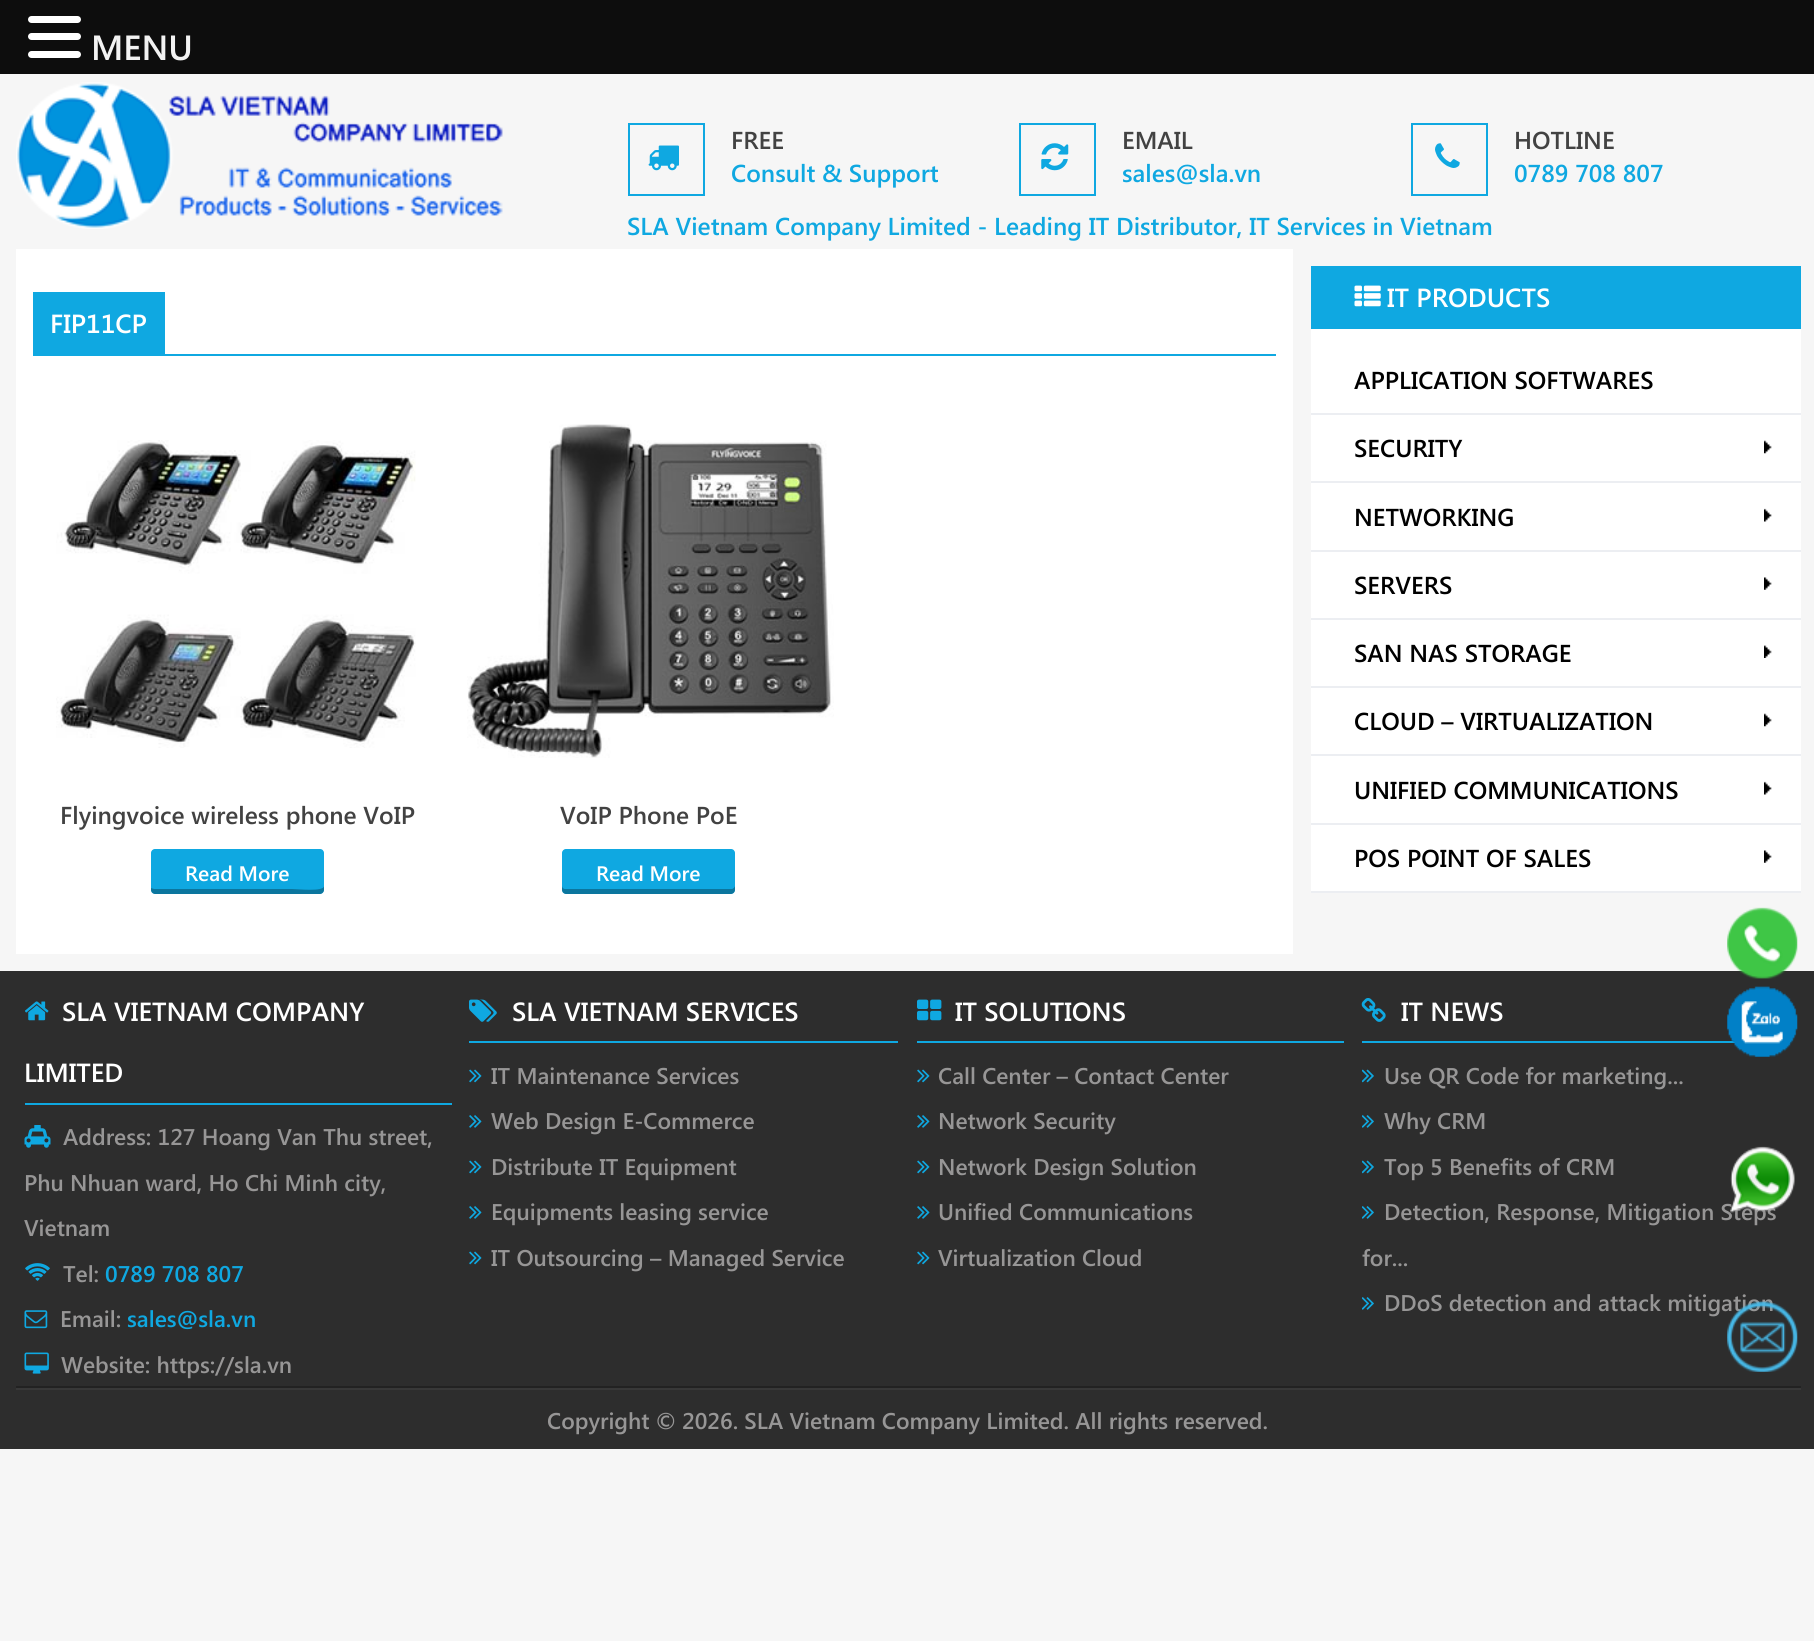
#include <cairo.h>
#include <math.h>
#include <stddef.h>


static void round_rect(cairo_t *cr, double x, double y, double w, double h, double r) {
    cairo_new_sub_path(cr);
    cairo_arc(cr, x + w - r, y + h - r, r, 0, M_PI / 2);
    cairo_arc(cr, x + r, y + h - r, r, M_PI / 2, M_PI);
    cairo_arc(cr, x + r, y + r, r, M_PI, 1.5 * M_PI);
    cairo_arc(cr, x + w - r, y + r, r, 1.5 * M_PI, 2 * M_PI);
    cairo_close_path(cr);
}

static void picture(cairo_t *cr, const char *path, double x, double y, double w, double h) {
    cairo_surface_t *image = cairo_image_surface_create_from_png(path);
    cairo_save(cr);
    cairo_set_source_surface(cr, image, x, y);
    cairo_rectangle(cr, x, y, w, h);
    cairo_fill(cr);
    cairo_restore(cr);
    cairo_surface_destroy(image);
}

int main(void) {
    cairo_surface_t *surface = cairo_image_surface_create(CAIRO_FORMAT_RGB24, 1814, 1641);
    cairo_t *cr = cairo_create(surface);
    cairo_font_options_t *options = cairo_font_options_create();
    cairo_font_options_set_hint_metrics(options, CAIRO_HINT_METRICS_OFF);
    cairo_font_options_set_hint_style(options, CAIRO_HINT_STYLE_NONE);
    cairo_set_font_options(cr, options);
    cairo_set_miter_limit(cr, 4);
    cairo_set_source_rgb(cr, 0.961, 0.961, 0.961);
    cairo_paint(cr);
    cairo_set_source_rgb(cr, 0.176, 0.176, 0.176);
    cairo_rectangle(cr, 0, 971, 1814, 478);
    cairo_fill(cr);
    cairo_set_source_rgb(cr, 0.051, 0.051, 0.051);
    cairo_rectangle(cr, 0, 0, 1814, 74);
    cairo_fill(cr);
    cairo_set_source_rgb(cr, 1, 1, 1);
    round_rect(cr, 28, 16, 53, 7, 3.5);
    cairo_fill(cr);
    round_rect(cr, 28, 33, 53, 7, 3.5);
    cairo_fill(cr);
    round_rect(cr, 28, 51, 53, 7, 3.5);
    cairo_fill(cr);
    cairo_select_font_face(cr, "Segoe UI SemiBold", CAIRO_FONT_SLANT_NORMAL, CAIRO_FONT_WEIGHT_NORMAL);
    cairo_set_font_size(cr, 35);
    cairo_set_source_rgb(cr, 0.949, 0.949, 0.949);
    cairo_move_to(cr, 91, 60);
    cairo_show_text(cr, "MENU");
    picture(cr, "img1.png", 1727, 907, 71, 72);
    cairo_set_source_rgb(cr, 0.059, 0.659, 0.882);
    cairo_rectangle(cr, 1362, 1041, 428, 2);
    cairo_fill(cr);
    picture(cr, "img2.png", 1727, 986, 71, 71);
    cairo_set_font_size(cr, 22.75);
    cairo_set_source_rgb(cr, 0.592, 0.588, 0.588);
    cairo_move_to(cr, 1384, 1220);
    cairo_show_text(cr, "Detection, Response, Mitigation Steps");
    picture(cr, "img3.png", 1728, 1146, 67, 68);
    cairo_move_to(cr, 1384, 1311);
    cairo_show_text(cr, "DDoS detection and attack mitigation");
    picture(cr, "img4.png", 1727, 1301, 71, 71);
    cairo_set_source_rgb(cr, 0.133, 0.133, 0.133);
    cairo_rectangle(cr, 16, 1386, 1785, 2);
    cairo_fill(cr);
    cairo_set_source_rgb(cr, 0.059, 0.659, 0.882);
    cairo_rectangle(cr, 25, 1103, 427, 2);
    cairo_fill(cr);
    picture(cr, "img5.png", 25, 1001, 24, 20);
    cairo_set_font_size(cr, 26.25);
    cairo_set_source_rgb(cr, 1, 1, 1);
    cairo_move_to(cr, 62, 1021);
    cairo_show_text(cr, "SLA VIETNAM COMPANY");
    cairo_move_to(cr, 24, 1082);
    cairo_show_text(cr, "LIMITED");
    picture(cr, "img6.png", 24, 1125, 27, 23);
    cairo_set_font_size(cr, 22.75);
    cairo_set_source_rgb(cr, 0.592, 0.588, 0.588);
    cairo_move_to(cr, 63, 1145);
    cairo_show_text(cr, "Address: 127 Hoang Van Thu street,");
    cairo_move_to(cr, 24, 1191);
    cairo_show_text(cr, "Phu Nhuan ward, Ho Chi Minh city,");
    cairo_move_to(cr, 24, 1236);
    cairo_show_text(cr, "Vietnam");
    picture(cr, "img7.png", 25, 1263, 25, 18);
    cairo_move_to(cr, 63, 1282);
    cairo_show_text(cr, "Tel:");
    cairo_set_source_rgb(cr, 0.059, 0.659, 0.882);
    cairo_move_to(cr, 105, 1282);
    cairo_show_text(cr, "0789 708 807");
    picture(cr, "img8.png", 24, 1310, 24, 19);
    cairo_set_source_rgb(cr, 0.592, 0.588, 0.588);
    cairo_move_to(cr, 60, 1327);
    cairo_show_text(cr, "Email:");
    cairo_set_source_rgb(cr, 0.059, 0.659, 0.882);
    cairo_move_to(cr, 127, 1327);
    cairo_show_text(cr, "sales@sla.vn");
    picture(cr, "img9.png", 24, 1352, 25, 22);
    cairo_set_source_rgb(cr, 0.592, 0.588, 0.588);
    cairo_move_to(cr, 61, 1373);
    cairo_show_text(cr, "Website: https://sla.vn");
    cairo_set_source_rgb(cr, 0.059, 0.659, 0.882);
    cairo_rectangle(cr, 469, 1041, 429, 2);
    cairo_fill(cr);
    picture(cr, "img10.png", 469, 999, 28, 23);
    cairo_set_font_size(cr, 26.25);
    cairo_set_source_rgb(cr, 1, 1, 1);
    cairo_move_to(cr, 512, 1021);
    cairo_show_text(cr, "SLA VIETNAM SERVICES");
    picture(cr, "img11.png", 469, 1069, 13, 14);
    cairo_set_font_size(cr, 22.75);
    cairo_set_source_rgb(cr, 0.592, 0.588, 0.588);
    cairo_move_to(cr, 491, 1084);
    cairo_show_text(cr, "IT Maintenance Services");
    picture(cr, "img12.png", 469, 1115, 13, 13);
    cairo_move_to(cr, 491, 1129);
    cairo_show_text(cr, "Web Design E-Commerce");
    picture(cr, "img11.png", 469, 1160, 13, 14);
    cairo_move_to(cr, 491, 1175);
    cairo_show_text(cr, "Distribute IT Equipment");
    picture(cr, "img12.png", 469, 1206, 13, 13);
    cairo_move_to(cr, 491, 1220);
    cairo_show_text(cr, "Equipments leasing service");
    picture(cr, "img11.png", 469, 1251, 13, 14);
    cairo_move_to(cr, 491, 1266);
    cairo_show_text(cr, "IT Outsourcing – Managed Service");
    cairo_set_source_rgb(cr, 0.059, 0.659, 0.882);
    cairo_rectangle(cr, 917, 1041, 427, 2);
    cairo_fill(cr);
    picture(cr, "img13.png", 917, 999, 25, 22);
    cairo_set_font_size(cr, 26.25);
    cairo_set_source_rgb(cr, 1, 1, 1);
    cairo_move_to(cr, 955, 1021);
    cairo_show_text(cr, "IT SOLUTIONS");
    picture(cr, "img11.png", 917, 1069, 13, 14);
    cairo_set_font_size(cr, 22.75);
    cairo_set_source_rgb(cr, 0.592, 0.588, 0.588);
    cairo_move_to(cr, 938, 1084);
    cairo_show_text(cr, "Call Center – Contact Center");
    picture(cr, "img12.png", 917, 1115, 13, 13);
    cairo_move_to(cr, 938, 1129);
    cairo_show_text(cr, "Network Security");
    picture(cr, "img11.png", 917, 1160, 13, 14);
    cairo_move_to(cr, 938, 1175);
    cairo_show_text(cr, "Network Design Solution");
    picture(cr, "img12.png", 917, 1206, 13, 13);
    cairo_move_to(cr, 938, 1220);
    cairo_show_text(cr, "Unified Communications");
    picture(cr, "img11.png", 917, 1251, 13, 14);
    cairo_move_to(cr, 938, 1266);
    cairo_show_text(cr, "Virtualization Cloud");
    picture(cr, "img14.png", 1361, 998, 25, 24);
    cairo_set_font_size(cr, 26.25);
    cairo_set_source_rgb(cr, 1, 1, 1);
    cairo_move_to(cr, 1401, 1021);
    cairo_show_text(cr, "IT NEWS");
    picture(cr, "img15.png", 1362, 1069, 12, 14);
    cairo_set_font_size(cr, 22.75);
    cairo_set_source_rgb(cr, 0.592, 0.588, 0.588);
    cairo_move_to(cr, 1384, 1084);
    cairo_show_text(cr, "Use QR Code for marketing...");
    picture(cr, "img16.png", 1362, 1115, 12, 13);
    cairo_move_to(cr, 1384, 1129);
    cairo_show_text(cr, "Why CRM");
    picture(cr, "img15.png", 1362, 1160, 12, 14);
    cairo_move_to(cr, 1384, 1175);
    cairo_show_text(cr, "Top 5 Benefits of CRM");
    picture(cr, "img16.png", 1362, 1206, 12, 13);
    cairo_move_to(cr, 1362, 1266);
    cairo_show_text(cr, "for...");
    picture(cr, "img16.png", 1362, 1297, 12, 13);
    cairo_set_source_rgb(cr, 0.22, 0.22, 0.22);
    cairo_rectangle(cr, 16, 1388, 1785, 2);
    cairo_fill(cr);
    cairo_set_source_rgb(cr, 0.592, 0.588, 0.588);
    cairo_move_to(cr, 547, 1429);
    cairo_show_text(cr, "Copyright © 2026. SLA Vietnam Company Limited. All rights reserved.");
    picture(cr, "img17.png", 16, 82, 487, 147);
    cairo_rectangle(cr, 629, 124, 75, 71);
    cairo_set_source_rgb(cr, 0.059, 0.659, 0.882);
    cairo_stroke(cr);
    picture(cr, "img18.png", 648, 145, 31, 26);
    cairo_set_font_size(cr, 24.5);
    cairo_set_source_rgb(cr, 0.259, 0.259, 0.259);
    cairo_move_to(cr, 731, 149);
    cairo_show_text(cr, "FREE");
    cairo_set_source_rgb(cr, 0.059, 0.659, 0.882);
    cairo_move_to(cr, 731, 182);
    cairo_show_text(cr, "Consult & Support");
    cairo_rectangle(cr, 1020, 124, 75, 71);
    cairo_stroke(cr);
    picture(cr, "img19.png", 1041, 143, 28, 28);
    cairo_set_source_rgb(cr, 0.259, 0.259, 0.259);
    cairo_move_to(cr, 1122, 149);
    cairo_show_text(cr, "EMAIL");
    cairo_set_source_rgb(cr, 0.059, 0.659, 0.882);
    cairo_move_to(cr, 1122, 182);
    cairo_show_text(cr, "sales@sla.vn");
    cairo_rectangle(cr, 1412, 124, 75, 71);
    cairo_stroke(cr);
    picture(cr, "img20.png", 1435, 143, 25, 25);
    cairo_set_source_rgb(cr, 0.259, 0.259, 0.259);
    cairo_move_to(cr, 1514, 149);
    cairo_show_text(cr, "HOTLINE");
    cairo_set_source_rgb(cr, 0.059, 0.659, 0.882);
    cairo_move_to(cr, 1514, 182);
    cairo_show_text(cr, "0789 708 807");
    cairo_move_to(cr, 627, 235);
    cairo_show_text(cr, "SLA Vietnam Company Limited - Leading IT Distributor, IT Services in Vietnam");
    cairo_set_source_rgb(cr, 1, 1, 1);
    cairo_rectangle(cr, 16, 249, 1277, 705);
    cairo_fill(cr);
    cairo_set_source_rgb(cr, 0.059, 0.659, 0.882);
    cairo_rectangle(cr, 33, 354, 1243, 2);
    cairo_fill(cr);
    cairo_rectangle(cr, 33, 292, 132, 62);
    cairo_fill(cr);
    cairo_set_font_size(cr, 26.25);
    cairo_set_source_rgb(cr, 1, 1, 1);
    cairo_move_to(cr, 50, 333);
    cairo_show_text(cr, "FIP11CP");
    picture(cr, "img21.png", 56, 440, 360, 308);
    cairo_set_font_size(cr, 24.5);
    cairo_set_source_rgb(cr, 0.259, 0.259, 0.259);
    cairo_move_to(cr, 60, 824);
    cairo_show_text(cr, "Flyingvoice wireless phone VoIP");
    cairo_set_source_rgb(cr, 0.059, 0.659, 0.882);
    round_rect(cr, 151, 849, 173, 45, 4);
    cairo_fill(cr);
    cairo_set_source_rgba(cr, 0, 0, 0, 0.3);
    cairo_new_path(cr);
    cairo_move_to(cr, 151, 888);
    cairo_line_to(cr, 151, 890);
    cairo_curve_to(cr, 151, 892, 153, 894, 155, 894);
    cairo_line_to(cr, 320, 894);
    cairo_curve_to(cr, 322, 894, 324, 892, 324, 890);
    cairo_line_to(cr, 324, 886);
    cairo_curve_to(cr, 324, 892, 297, 889, 292, 889);
    cairo_line_to(cr, 154, 889);
    cairo_close_path(cr);
    cairo_fill(cr);
    cairo_set_font_size(cr, 21);
    cairo_set_source_rgb(cr, 1, 1, 1);
    cairo_move_to(cr, 185, 881);
    cairo_show_text(cr, "Read More");
    picture(cr, "img22.png", 467, 424, 367, 334);
    cairo_set_font_size(cr, 24.5);
    cairo_set_source_rgb(cr, 0.259, 0.259, 0.259);
    cairo_move_to(cr, 560, 824);
    cairo_show_text(cr, "VoIP Phone PoE");
    cairo_set_source_rgb(cr, 0.059, 0.659, 0.882);
    round_rect(cr, 562, 849, 173, 45, 4);
    cairo_fill(cr);
    cairo_set_source_rgba(cr, 0, 0, 0, 0.3);
    cairo_new_path(cr);
    cairo_move_to(cr, 562, 886);
    cairo_line_to(cr, 562, 890);
    cairo_curve_to(cr, 562, 892, 564, 894, 566, 894);
    cairo_line_to(cr, 731, 894);
    cairo_curve_to(cr, 733, 894, 735, 892, 735, 890);
    cairo_line_to(cr, 735, 886);
    cairo_curve_to(cr, 735, 887, 733, 889, 732, 889);
    cairo_line_to(cr, 565, 889);
    cairo_curve_to(cr, 563, 889, 562, 887, 562, 886);
    cairo_close_path(cr);
    cairo_fill(cr);
    cairo_set_font_size(cr, 21);
    cairo_set_source_rgb(cr, 1, 1, 1);
    cairo_move_to(cr, 596, 881);
    cairo_show_text(cr, "Read More");
    cairo_rectangle(cr, 1311, 329, 490, 562);
    cairo_fill(cr);
    cairo_set_source_rgb(cr, 0.059, 0.659, 0.882);
    cairo_rectangle(cr, 1311, 266, 490, 63);
    cairo_fill(cr);
    picture(cr, "img23.png", 1354, 285, 27, 22);
    cairo_set_font_size(cr, 26.25);
    cairo_set_source_rgb(cr, 1, 1, 1);
    cairo_move_to(cr, 1387, 307);
    cairo_show_text(cr, "IT PRODUCTS");
    cairo_set_source_rgb(cr, 0.922, 0.933, 0.949);
    cairo_rectangle(cr, 1311, 413, 490, 2);
    cairo_fill(cr);
    cairo_set_font_size(cr, 24.5);
    cairo_set_source_rgb(cr, 0, 0, 0);
    cairo_move_to(cr, 1354, 389);
    cairo_show_text(cr, "APPLICATION SOFTWARES");
    cairo_set_source_rgb(cr, 0.922, 0.933, 0.949);
    cairo_rectangle(cr, 1311, 481, 490, 2);
    cairo_fill(cr);
    cairo_set_source_rgb(cr, 0, 0, 0);
    cairo_move_to(cr, 1354, 457);
    cairo_show_text(cr, "SECURITY");
    picture(cr, "img24.png", 1764, 440, 8, 14);
    cairo_set_source_rgb(cr, 0.922, 0.933, 0.949);
    cairo_rectangle(cr, 1311, 550, 490, 2);
    cairo_fill(cr);
    cairo_set_source_rgb(cr, 0, 0, 0);
    cairo_move_to(cr, 1354, 526);
    cairo_show_text(cr, "NETWORKING");
    picture(cr, "img25.png", 1764, 508, 8, 14);
    cairo_set_source_rgb(cr, 0.922, 0.933, 0.949);
    cairo_rectangle(cr, 1311, 618, 490, 2);
    cairo_fill(cr);
    cairo_set_source_rgb(cr, 0, 0, 0);
    cairo_move_to(cr, 1354, 594);
    cairo_show_text(cr, "SERVERS");
    picture(cr, "img26.png", 1764, 577, 8, 13);
    cairo_set_source_rgb(cr, 0.922, 0.933, 0.949);
    cairo_rectangle(cr, 1311, 686, 490, 2);
    cairo_fill(cr);
    cairo_set_source_rgb(cr, 0, 0, 0);
    cairo_move_to(cr, 1354, 662);
    cairo_show_text(cr, "SAN NAS STORAGE");
    picture(cr, "img27.png", 1764, 645, 8, 13);
    cairo_set_source_rgb(cr, 0.922, 0.933, 0.949);
    cairo_rectangle(cr, 1311, 754, 490, 2);
    cairo_fill(cr);
    cairo_set_source_rgb(cr, 0, 0, 0);
    cairo_move_to(cr, 1354, 730);
    cairo_show_text(cr, "CLOUD – VIRTUALIZATION");
    picture(cr, "img24.png", 1764, 713, 8, 14);
    cairo_set_source_rgb(cr, 0.922, 0.933, 0.949);
    cairo_rectangle(cr, 1311, 823, 490, 2);
    cairo_fill(cr);
    cairo_set_source_rgb(cr, 0, 0, 0);
    cairo_move_to(cr, 1354, 799);
    cairo_show_text(cr, "UNIFIED COMMUNICATIONS");
    picture(cr, "img25.png", 1764, 781, 8, 14);
    cairo_set_source_rgb(cr, 0.922, 0.933, 0.949);
    cairo_rectangle(cr, 1311, 891, 490, 2);
    cairo_fill(cr);
    cairo_set_source_rgb(cr, 0, 0, 0);
    cairo_move_to(cr, 1354, 867);
    cairo_show_text(cr, "POS POINT OF SALES");
    picture(cr, "img26.png", 1764, 850, 8, 13);
    cairo_surface_write_to_png(surface, "page.png");
    cairo_font_options_destroy(options);
    cairo_destroy(cr);
    cairo_surface_destroy(surface);
    return 0;
}
